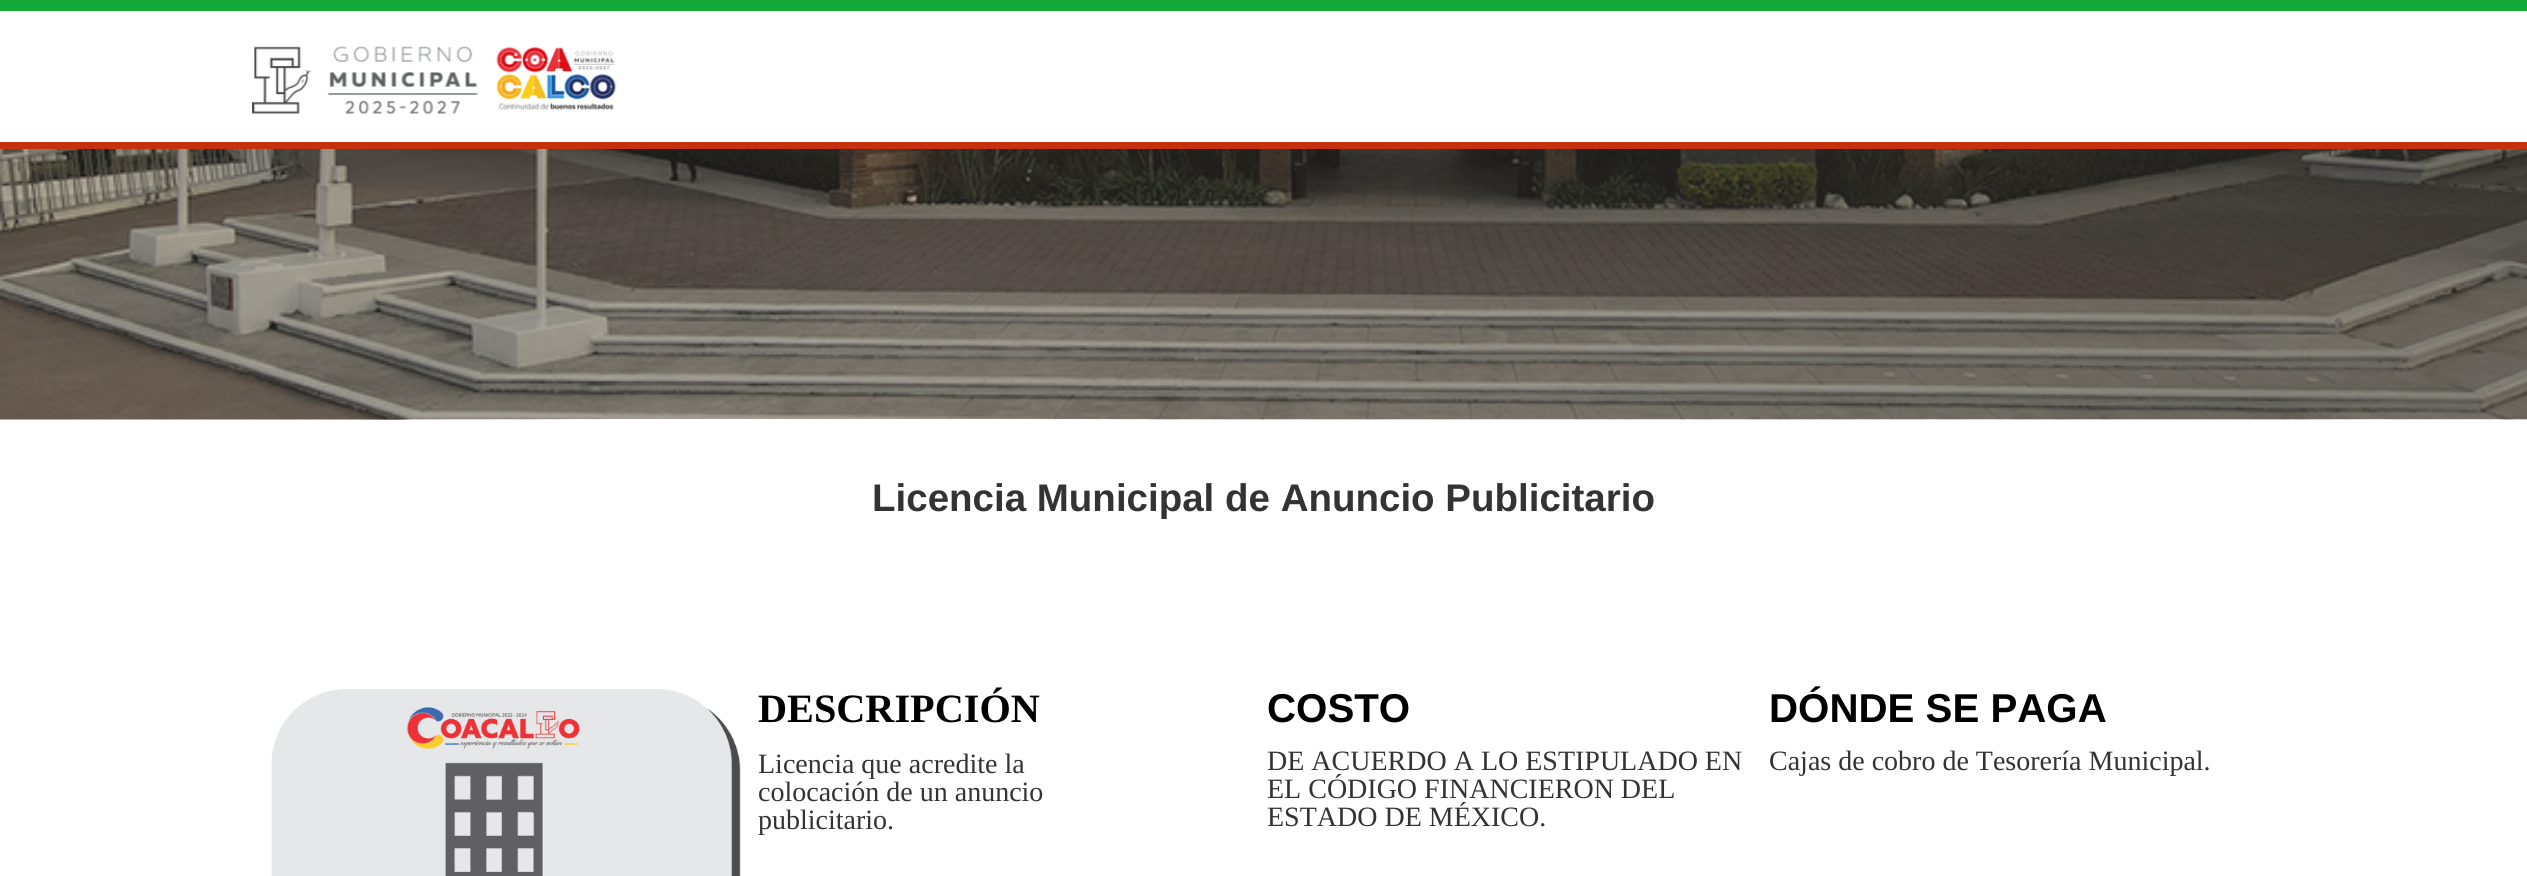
#include <cairo.h>
#include <math.h>
#include <stddef.h>


static void picture(cairo_t *cr, const char *path, double x, double y, double w, double h) {
    cairo_surface_t *image = cairo_image_surface_create_from_png(path);
    cairo_save(cr);
    cairo_set_source_surface(cr, image, x, y);
    cairo_rectangle(cr, x, y, w, h);
    cairo_fill(cr);
    cairo_restore(cr);
    cairo_surface_destroy(image);
}

int main(void) {
    cairo_surface_t *surface = cairo_image_surface_create(CAIRO_FORMAT_RGB24, 2527, 876);
    cairo_t *cr = cairo_create(surface);
    cairo_font_options_t *options = cairo_font_options_create();
    cairo_font_options_set_hint_metrics(options, CAIRO_HINT_METRICS_OFF);
    cairo_font_options_set_hint_style(options, CAIRO_HINT_STYLE_NONE);
    cairo_set_font_options(cr, options);
    cairo_set_miter_limit(cr, 4);
    cairo_set_source_rgb(cr, 1, 1, 1);
    cairo_paint(cr);
    cairo_set_source_rgb(cr, 0.075, 0.667, 0.224);
    cairo_rectangle(cr, 0, 0, 2527, 11);
    cairo_fill(cr);
    cairo_set_source_rgb(cr, 0.773, 0.192, 0.051);
    cairo_rectangle(cr, 0, 142, 2527, 7);
    cairo_fill(cr);
    picture(cr, "img1.png", 252, 46, 365, 68);
    picture(cr, "img2.png", 0, 149, 2527, 271);
    cairo_select_font_face(cr, "Liberation Sans", CAIRO_FONT_SLANT_NORMAL, CAIRO_FONT_WEIGHT_BOLD);
    cairo_set_font_size(cr, 38.5);
    cairo_set_source_rgb(cr, 0.2, 0.2, 0.2);
    cairo_move_to(cr, 872, 511);
    cairo_show_text(cr, "Licencia Municipal de Anuncio Publicitario");
    picture(cr, "img3.png", 271, 689, 470, 187);
    cairo_select_font_face(cr, "Liberation Serif", CAIRO_FONT_SLANT_NORMAL, CAIRO_FONT_WEIGHT_BOLD);
    cairo_set_font_size(cr, 40.25);
    cairo_set_source_rgb(cr, 0, 0, 0);
    cairo_move_to(cr, 758, 722);
    cairo_show_text(cr, "DESCRIPCIÓN");
    cairo_select_font_face(cr, "Liberation Serif", CAIRO_FONT_SLANT_NORMAL, CAIRO_FONT_WEIGHT_NORMAL);
    cairo_set_font_size(cr, 28);
    cairo_set_source_rgb(cr, 0.2, 0.2, 0.2);
    cairo_move_to(cr, 758, 773);
    cairo_show_text(cr, "Licencia que acredite la");
    cairo_move_to(cr, 758, 801);
    cairo_show_text(cr, "colocación de un anuncio");
    cairo_move_to(cr, 758, 829);
    cairo_show_text(cr, "publicitario.");
    cairo_select_font_face(cr, "Liberation Sans", CAIRO_FONT_SLANT_NORMAL, CAIRO_FONT_WEIGHT_BOLD);
    cairo_set_font_size(cr, 40.25);
    cairo_set_source_rgb(cr, 0, 0, 0);
    cairo_move_to(cr, 1267, 722);
    cairo_show_text(cr, "COSTO");
    cairo_select_font_face(cr, "Liberation Serif", CAIRO_FONT_SLANT_NORMAL, CAIRO_FONT_WEIGHT_NORMAL);
    cairo_set_font_size(cr, 28);
    cairo_set_source_rgb(cr, 0.2, 0.2, 0.2);
    cairo_move_to(cr, 1267, 770);
    cairo_show_text(cr, "DE ACUERDO A LO ESTIPULADO EN");
    cairo_move_to(cr, 1267, 798);
    cairo_show_text(cr, "EL CÓDIGO FINANCIERON DEL");
    cairo_move_to(cr, 1267, 826);
    cairo_show_text(cr, "ESTADO DE MÉXICO.");
    cairo_select_font_face(cr, "Liberation Sans", CAIRO_FONT_SLANT_NORMAL, CAIRO_FONT_WEIGHT_BOLD);
    cairo_set_font_size(cr, 40.25);
    cairo_set_source_rgb(cr, 0, 0, 0);
    cairo_move_to(cr, 1769, 722);
    cairo_show_text(cr, "DÓNDE SE PAGA");
    cairo_select_font_face(cr, "Liberation Serif", CAIRO_FONT_SLANT_NORMAL, CAIRO_FONT_WEIGHT_NORMAL);
    cairo_set_font_size(cr, 28);
    cairo_set_source_rgb(cr, 0.2, 0.2, 0.2);
    cairo_move_to(cr, 1769, 770);
    cairo_show_text(cr, "Cajas de cobro de Tesorería Municipal.");
    cairo_surface_write_to_png(surface, "page.png");
    cairo_font_options_destroy(options);
    cairo_destroy(cr);
    cairo_surface_destroy(surface);
    return 0;
}
